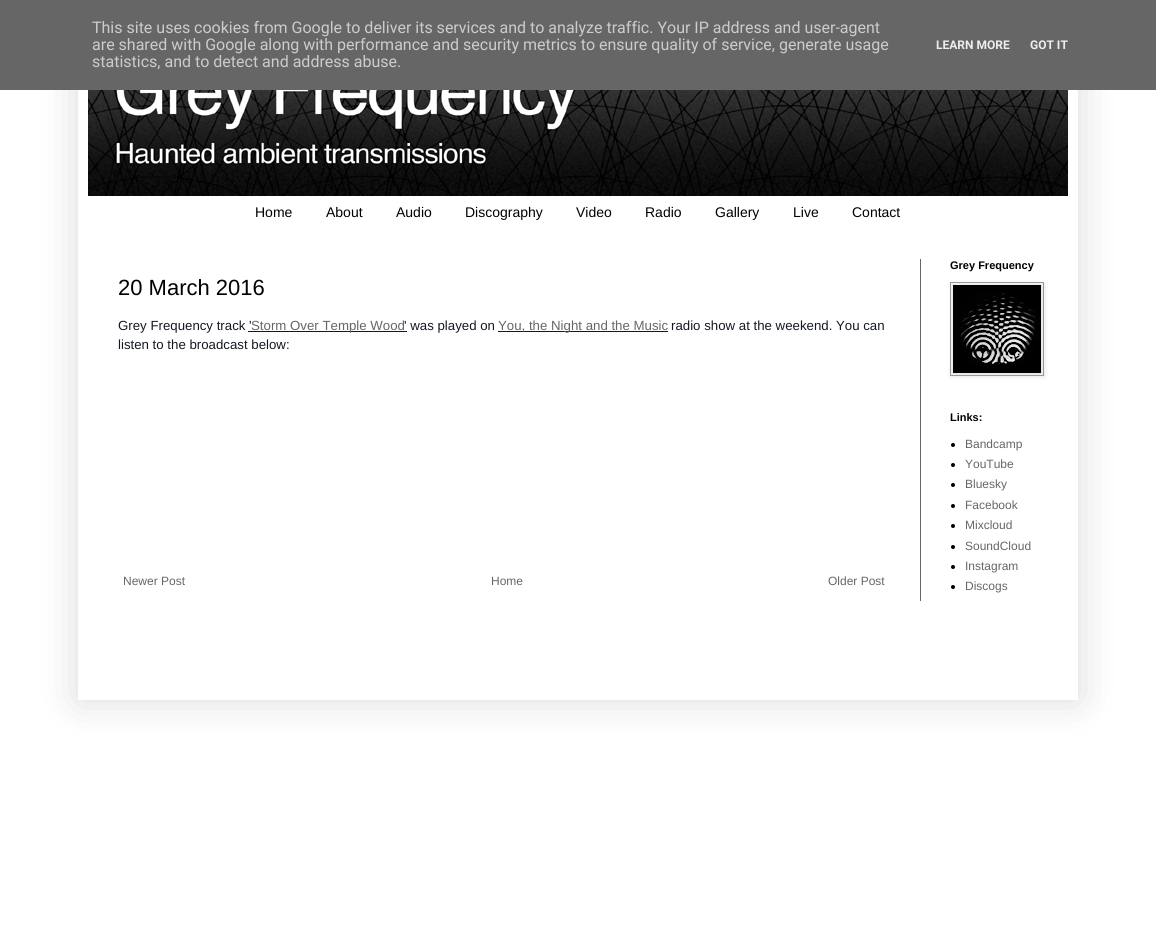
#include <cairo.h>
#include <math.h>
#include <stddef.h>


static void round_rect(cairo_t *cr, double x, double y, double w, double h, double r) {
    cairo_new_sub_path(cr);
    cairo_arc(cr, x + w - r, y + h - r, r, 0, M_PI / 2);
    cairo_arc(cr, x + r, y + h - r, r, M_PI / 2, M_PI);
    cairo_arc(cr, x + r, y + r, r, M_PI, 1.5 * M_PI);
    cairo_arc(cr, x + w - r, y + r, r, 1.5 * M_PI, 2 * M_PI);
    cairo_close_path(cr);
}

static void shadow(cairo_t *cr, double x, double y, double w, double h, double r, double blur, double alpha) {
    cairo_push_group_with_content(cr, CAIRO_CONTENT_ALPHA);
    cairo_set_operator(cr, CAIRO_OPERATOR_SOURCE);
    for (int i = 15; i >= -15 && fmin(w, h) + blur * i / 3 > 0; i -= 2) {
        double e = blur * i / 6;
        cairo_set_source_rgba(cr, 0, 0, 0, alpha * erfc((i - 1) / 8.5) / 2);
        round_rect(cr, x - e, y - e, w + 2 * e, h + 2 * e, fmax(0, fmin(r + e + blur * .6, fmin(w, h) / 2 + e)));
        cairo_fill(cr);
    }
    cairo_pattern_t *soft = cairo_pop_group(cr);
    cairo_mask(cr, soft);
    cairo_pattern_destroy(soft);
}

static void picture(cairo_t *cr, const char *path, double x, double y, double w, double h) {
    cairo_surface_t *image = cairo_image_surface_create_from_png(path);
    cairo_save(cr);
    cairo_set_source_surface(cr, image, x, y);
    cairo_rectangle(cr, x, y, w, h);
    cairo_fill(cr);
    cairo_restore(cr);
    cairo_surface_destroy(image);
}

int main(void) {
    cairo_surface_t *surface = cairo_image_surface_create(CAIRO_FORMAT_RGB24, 1156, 950);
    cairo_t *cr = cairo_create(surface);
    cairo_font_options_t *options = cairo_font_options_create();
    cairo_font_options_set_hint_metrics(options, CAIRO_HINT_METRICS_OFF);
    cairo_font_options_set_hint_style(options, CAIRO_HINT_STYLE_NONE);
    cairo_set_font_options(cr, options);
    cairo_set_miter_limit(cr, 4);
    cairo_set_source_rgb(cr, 1, 1, 1);
    cairo_paint(cr);
    cairo_save(cr);
    cairo_set_fill_rule(cr, CAIRO_FILL_RULE_EVEN_ODD);
    cairo_new_path(cr);
    cairo_move_to(cr, 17, 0);
    cairo_line_to(cr, 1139, 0);
    cairo_line_to(cr, 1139, 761);
    cairo_line_to(cr, 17, 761);
    cairo_close_path(cr);
    cairo_move_to(cr, 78, 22);
    cairo_line_to(cr, 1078, 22);
    cairo_line_to(cr, 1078, 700);
    cairo_line_to(cr, 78, 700);
    cairo_close_path(cr);
    cairo_clip(cr);
    cairo_set_source_rgb(cr, 0, 0, 0);
    shadow(cr, 78, 22, 1000, 678, 0, 20, 0.15);
    cairo_restore(cr);
    cairo_set_source_rgb(cr, 0.4, 0.4, 0.4);
    cairo_rectangle(cr, 0, 0, 1156, 90);
    cairo_fill(cr);
    cairo_select_font_face(cr, "Roboto", CAIRO_FONT_SLANT_NORMAL, CAIRO_FONT_WEIGHT_NORMAL);
    cairo_set_font_size(cr, 16);
    cairo_set_source_rgb(cr, 0.8, 0.8, 0.8);
    cairo_move_to(cr, 92, 33);
    cairo_show_text(cr, "This site uses cookies from Google to deliver its services and to analyze traffic. Your IP address and user-agent");
    cairo_move_to(cr, 92, 50);
    cairo_show_text(cr, "are shared with Google along with performance and security metrics to ensure quality of service, generate usage");
    cairo_move_to(cr, 92, 67);
    cairo_show_text(cr, "statistics, and to detect and address abuse.");
    cairo_select_font_face(cr, "Roboto", CAIRO_FONT_SLANT_NORMAL, CAIRO_FONT_WEIGHT_BOLD);
    cairo_set_font_size(cr, 12);
    cairo_set_source_rgb(cr, 0.933, 0.933, 0.933);
    cairo_move_to(cr, 936, 49);
    cairo_show_text(cr, "LEARN MORE");
    cairo_move_to(cr, 1030, 49);
    cairo_show_text(cr, "GOT IT");
    picture(cr, "img1.png", 88, 90, 980, 106);
    cairo_select_font_face(cr, "Liberation Sans", CAIRO_FONT_SLANT_NORMAL, CAIRO_FONT_WEIGHT_NORMAL);
    cairo_set_font_size(cr, 14);
    cairo_set_source_rgb(cr, 0, 0, 0);
    cairo_move_to(cr, 255, 217);
    cairo_show_text(cr, "Home");
    cairo_move_to(cr, 326, 217);
    cairo_show_text(cr, "About");
    cairo_move_to(cr, 396, 217);
    cairo_show_text(cr, "Audio");
    cairo_move_to(cr, 465, 217);
    cairo_show_text(cr, "Discography");
    cairo_move_to(cr, 576, 217);
    cairo_show_text(cr, "Video");
    cairo_move_to(cr, 645, 217);
    cairo_show_text(cr, "Radio");
    cairo_move_to(cr, 715, 217);
    cairo_show_text(cr, "Gallery");
    cairo_move_to(cr, 793, 217);
    cairo_show_text(cr, "Live");
    cairo_move_to(cr, 852, 217);
    cairo_show_text(cr, "Contact");
    cairo_set_source_rgb(cr, 0.4, 0.4, 0.4);
    cairo_rectangle(cr, 920, 259, 1, 342);
    cairo_fill(cr);
    cairo_set_font_size(cr, 22);
    cairo_set_source_rgb(cr, 0, 0, 0);
    cairo_move_to(cr, 118, 295);
    cairo_show_text(cr, "20 March 2016");
    cairo_set_font_size(cr, 13.25);
    cairo_set_source_rgb(cr, 0.078, 0.094, 0.137);
    cairo_move_to(cr, 118, 330);
    cairo_show_text(cr, "Grey Frequency track '");
    cairo_rectangle(cr, 248, 331, 159, 1);
    cairo_fill(cr);
    cairo_set_source_rgb(cr, 0.4, 0.4, 0.4);
    cairo_move_to(cr, 251, 330);
    cairo_show_text(cr, "Storm Over Temple Wood");
    cairo_set_source_rgb(cr, 0.078, 0.094, 0.137);
    cairo_move_to(cr, 404, 330);
    cairo_show_text(cr, "' was played on");
    cairo_rectangle(cr, 498, 331, 170, 1);
    cairo_fill(cr);
    cairo_set_source_rgb(cr, 0.4, 0.4, 0.4);
    cairo_move_to(cr, 498, 330);
    cairo_show_text(cr, "You, the Night and the Music");
    cairo_set_source_rgb(cr, 0.078, 0.094, 0.137);
    cairo_move_to(cr, 671, 330);
    cairo_show_text(cr, "radio show at the weekend. You can");
    cairo_move_to(cr, 118, 349);
    cairo_show_text(cr, "listen to the broadcast below:");
    cairo_set_font_size(cr, 12);
    cairo_set_source_rgb(cr, 0.4, 0.4, 0.4);
    cairo_move_to(cr, 123, 585);
    cairo_show_text(cr, "Newer Post");
    cairo_move_to(cr, 491, 585);
    cairo_show_text(cr, "Home");
    cairo_move_to(cr, 828, 585);
    cairo_show_text(cr, "Older Post");
    cairo_select_font_face(cr, "Liberation Sans", CAIRO_FONT_SLANT_NORMAL, CAIRO_FONT_WEIGHT_BOLD);
    cairo_set_font_size(cr, 11);
    cairo_set_source_rgb(cr, 0, 0, 0);
    cairo_move_to(cr, 950, 269);
    cairo_show_text(cr, "Grey Frequency");
    cairo_set_source_rgb(cr, 0, 0, 0);
    shadow(cr, 951, 283, 94, 94, 0, 2.5, 0.1);
    cairo_rectangle(cr, 950.5, 282.5, 93, 93);
    cairo_set_source_rgb(cr, 0.6, 0.6, 0.6);
    cairo_set_line_width(cr, 1);
    cairo_stroke(cr);
    picture(cr, "img2.png", 953, 285, 88, 88);
    cairo_set_source_rgb(cr, 0, 0, 0);
    cairo_move_to(cr, 950, 421);
    cairo_show_text(cr, "Links:");
    cairo_new_path(cr);
    cairo_arc(cr, 953, 445, 2, 0, 2 * M_PI);
    cairo_fill(cr);
    cairo_select_font_face(cr, "Liberation Sans", CAIRO_FONT_SLANT_NORMAL, CAIRO_FONT_WEIGHT_NORMAL);
    cairo_set_font_size(cr, 12);
    cairo_set_source_rgb(cr, 0.4, 0.4, 0.4);
    cairo_move_to(cr, 965, 448);
    cairo_show_text(cr, "Bandcamp");
    cairo_set_source_rgb(cr, 0, 0, 0);
    cairo_new_path(cr);
    cairo_arc(cr, 953, 465, 2, 0, 2 * M_PI);
    cairo_fill(cr);
    cairo_set_source_rgb(cr, 0.4, 0.4, 0.4);
    cairo_move_to(cr, 965, 468);
    cairo_show_text(cr, "YouTube");
    cairo_set_source_rgb(cr, 0, 0, 0);
    cairo_new_path(cr);
    cairo_arc(cr, 953, 485, 2, 0, 2 * M_PI);
    cairo_fill(cr);
    cairo_set_source_rgb(cr, 0.4, 0.4, 0.4);
    cairo_move_to(cr, 965, 488);
    cairo_show_text(cr, "Bluesky");
    cairo_set_source_rgb(cr, 0, 0, 0);
    cairo_new_path(cr);
    cairo_arc(cr, 953, 506, 2, 0, 2 * M_PI);
    cairo_fill(cr);
    cairo_set_source_rgb(cr, 0.4, 0.4, 0.4);
    cairo_move_to(cr, 965, 509);
    cairo_show_text(cr, "Facebook");
    cairo_set_source_rgb(cr, 0, 0, 0);
    cairo_new_path(cr);
    cairo_arc(cr, 953, 526, 2, 0, 2 * M_PI);
    cairo_fill(cr);
    cairo_set_source_rgb(cr, 0.4, 0.4, 0.4);
    cairo_move_to(cr, 965, 529);
    cairo_show_text(cr, "Mixcloud");
    cairo_set_source_rgb(cr, 0, 0, 0);
    cairo_new_path(cr);
    cairo_arc(cr, 953, 547, 2, 0, 2 * M_PI);
    cairo_fill(cr);
    cairo_set_source_rgb(cr, 0.4, 0.4, 0.4);
    cairo_move_to(cr, 965, 550);
    cairo_show_text(cr, "SoundCloud");
    cairo_set_source_rgb(cr, 0, 0, 0);
    cairo_new_path(cr);
    cairo_arc(cr, 953, 567, 2, 0, 2 * M_PI);
    cairo_fill(cr);
    cairo_set_source_rgb(cr, 0.4, 0.4, 0.4);
    cairo_move_to(cr, 965, 570);
    cairo_show_text(cr, "Instagram");
    cairo_set_source_rgb(cr, 0, 0, 0);
    cairo_new_path(cr);
    cairo_arc(cr, 953, 587, 2, 0, 2 * M_PI);
    cairo_fill(cr);
    cairo_set_source_rgb(cr, 0.4, 0.4, 0.4);
    cairo_move_to(cr, 965, 590);
    cairo_show_text(cr, "Discogs");
    cairo_surface_write_to_png(surface, "page.png");
    cairo_font_options_destroy(options);
    cairo_destroy(cr);
    cairo_surface_destroy(surface);
    return 0;
}
